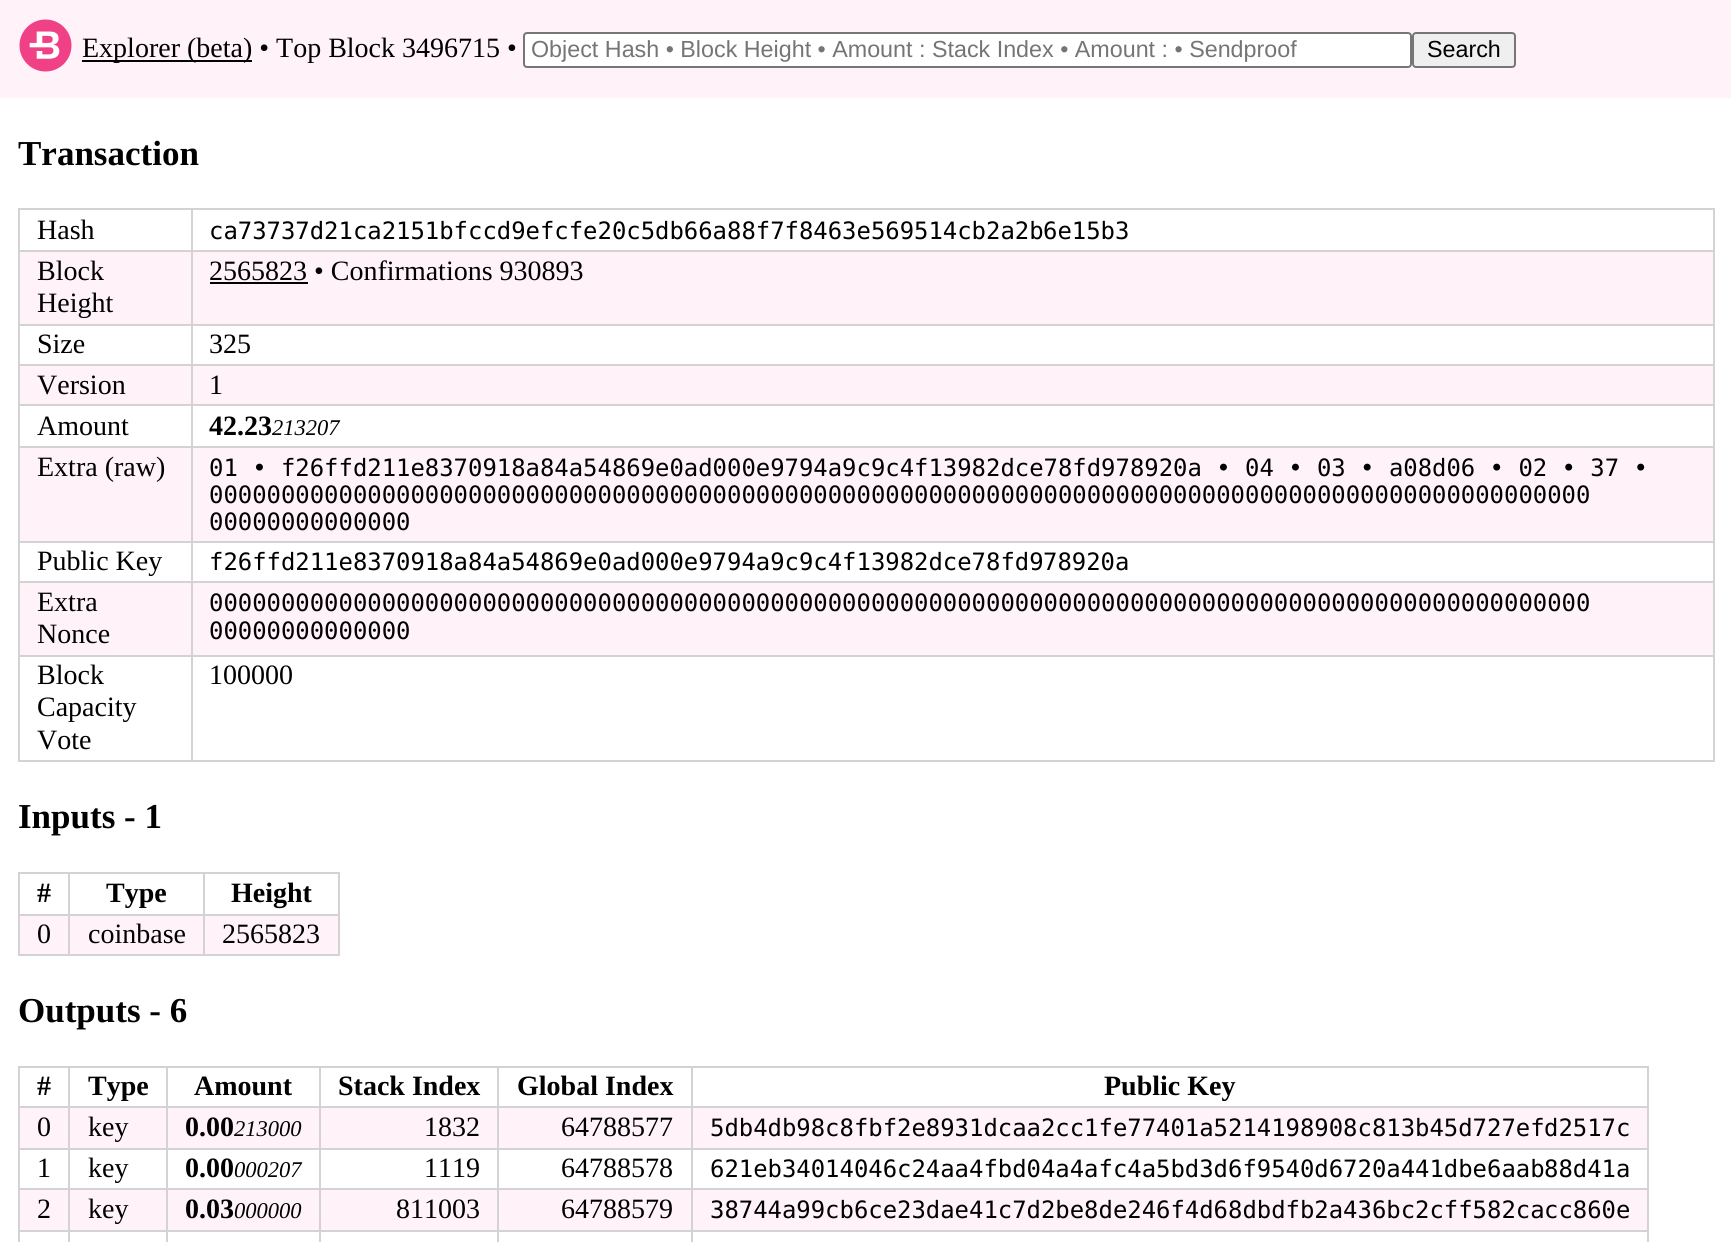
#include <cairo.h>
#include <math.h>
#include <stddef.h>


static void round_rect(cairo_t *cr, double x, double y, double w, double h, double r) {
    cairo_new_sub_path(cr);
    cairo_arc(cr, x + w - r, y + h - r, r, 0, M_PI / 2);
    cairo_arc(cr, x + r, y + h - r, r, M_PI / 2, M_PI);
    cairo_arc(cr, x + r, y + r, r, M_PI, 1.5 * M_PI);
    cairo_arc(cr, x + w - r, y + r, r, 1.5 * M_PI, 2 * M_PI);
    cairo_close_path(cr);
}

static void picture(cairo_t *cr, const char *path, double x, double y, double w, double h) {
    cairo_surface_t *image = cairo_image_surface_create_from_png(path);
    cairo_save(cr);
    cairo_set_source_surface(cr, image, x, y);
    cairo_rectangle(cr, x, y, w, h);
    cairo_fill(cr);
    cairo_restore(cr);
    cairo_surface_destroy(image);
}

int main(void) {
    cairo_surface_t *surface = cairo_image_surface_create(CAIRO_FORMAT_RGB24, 1731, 1242);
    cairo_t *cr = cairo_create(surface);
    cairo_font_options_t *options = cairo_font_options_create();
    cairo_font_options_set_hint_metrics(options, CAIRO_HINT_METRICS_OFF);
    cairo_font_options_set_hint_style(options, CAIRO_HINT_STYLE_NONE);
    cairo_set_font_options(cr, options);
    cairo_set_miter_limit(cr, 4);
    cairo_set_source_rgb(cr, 1, 1, 1);
    cairo_paint(cr);
    cairo_set_source_rgb(cr, 1, 0.953, 0.976);
    cairo_rectangle(cr, 0, 0, 1731, 98);
    cairo_fill(cr);
    picture(cr, "img1.png", 19, 19, 53, 53);
    cairo_set_source_rgb(cr, 0, 0, 0);
    cairo_rectangle(cr, 82, 60, 170, 2);
    cairo_fill(cr);
    cairo_select_font_face(cr, "Liberation Serif", CAIRO_FONT_SLANT_NORMAL, CAIRO_FONT_WEIGHT_NORMAL);
    cairo_set_font_size(cr, 28);
    cairo_move_to(cr, 82, 57);
    cairo_show_text(cr, "Explorer (beta) • Top Block 3496715 •");
    cairo_set_source_rgb(cr, 1, 1, 1);
    round_rect(cr, 524, 33, 887, 34, 3);
    cairo_fill_preserve(cr);
    cairo_set_source_rgb(cr, 0.463, 0.463, 0.463);
    cairo_stroke(cr);
    cairo_select_font_face(cr, "Liberation Sans", CAIRO_FONT_SLANT_NORMAL, CAIRO_FONT_WEIGHT_NORMAL);
    cairo_set_font_size(cr, 23.3);
    cairo_set_source_rgb(cr, 0.459, 0.459, 0.459);
    cairo_move_to(cr, 531, 57);
    cairo_show_text(cr, "Object Hash • Block Height • Amount : Stack Index • Amount : • Sendproof");
    cairo_set_source_rgb(cr, 0.937, 0.937, 0.937);
    round_rect(cr, 1413, 33, 102, 34, 3);
    cairo_fill_preserve(cr);
    cairo_set_source_rgb(cr, 0.463, 0.463, 0.463);
    cairo_stroke(cr);
    cairo_set_source_rgb(cr, 0, 0, 0);
    cairo_move_to(cr, 1427, 57);
    cairo_show_text(cr, "Search");
    cairo_select_font_face(cr, "Liberation Serif", CAIRO_FONT_SLANT_NORMAL, CAIRO_FONT_WEIGHT_BOLD);
    cairo_set_font_size(cr, 35);
    cairo_move_to(cr, 18, 165);
    cairo_show_text(cr, "Transaction");
    cairo_set_source_rgb(cr, 0.827, 0.827, 0.827);
    cairo_rectangle(cr, 191, 208, 1524, 2);
    cairo_fill(cr);
    cairo_rectangle(cr, 191, 250, 1524, 2);
    cairo_fill(cr);
    cairo_set_source_rgb(cr, 1, 0.953, 0.976);
    cairo_rectangle(cr, 20, 252, 1693, 72);
    cairo_fill(cr);
    cairo_set_source_rgb(cr, 0.827, 0.827, 0.827);
    cairo_rectangle(cr, 191, 324, 1524, 2);
    cairo_fill(cr);
    cairo_rectangle(cr, 191, 364, 1524, 2);
    cairo_fill(cr);
    cairo_set_source_rgb(cr, 1, 0.953, 0.976);
    cairo_rectangle(cr, 20, 366, 1693, 38);
    cairo_fill(cr);
    cairo_set_source_rgb(cr, 0.827, 0.827, 0.827);
    cairo_rectangle(cr, 191, 404, 1524, 2);
    cairo_fill(cr);
    cairo_rectangle(cr, 191, 446, 1524, 2);
    cairo_fill(cr);
    cairo_set_source_rgb(cr, 1, 0.953, 0.976);
    cairo_rectangle(cr, 20, 448, 1693, 93);
    cairo_fill(cr);
    cairo_set_source_rgb(cr, 0.827, 0.827, 0.827);
    cairo_rectangle(cr, 191, 541, 1524, 2);
    cairo_fill(cr);
    cairo_rectangle(cr, 191, 581, 1524, 2);
    cairo_fill(cr);
    cairo_set_source_rgb(cr, 1, 0.953, 0.976);
    cairo_rectangle(cr, 20, 583, 1693, 72);
    cairo_fill(cr);
    cairo_set_source_rgb(cr, 0.827, 0.827, 0.827);
    cairo_rectangle(cr, 191, 655, 1524, 2);
    cairo_fill(cr);
    cairo_rectangle(cr, 1713, 655, 2, 106);
    cairo_fill(cr);
    cairo_rectangle(cr, 191, 760, 1524, 2);
    cairo_fill(cr);
    cairo_rectangle(cr, 191, 655, 2, 106);
    cairo_fill(cr);
    cairo_rectangle(cr, 18, 655, 175, 2);
    cairo_fill(cr);
    cairo_rectangle(cr, 191, 581, 2, 75);
    cairo_fill(cr);
    cairo_rectangle(cr, 18, 581, 175, 2);
    cairo_fill(cr);
    cairo_rectangle(cr, 191, 541, 2, 42);
    cairo_fill(cr);
    cairo_rectangle(cr, 18, 541, 175, 2);
    cairo_fill(cr);
    cairo_rectangle(cr, 191, 446, 2, 97);
    cairo_fill(cr);
    cairo_rectangle(cr, 18, 446, 175, 2);
    cairo_fill(cr);
    cairo_rectangle(cr, 191, 404, 2, 44);
    cairo_fill(cr);
    cairo_rectangle(cr, 18, 404, 175, 2);
    cairo_fill(cr);
    cairo_rectangle(cr, 191, 364, 2, 42);
    cairo_fill(cr);
    cairo_rectangle(cr, 18, 364, 175, 2);
    cairo_fill(cr);
    cairo_rectangle(cr, 191, 324, 2, 42);
    cairo_fill(cr);
    cairo_rectangle(cr, 18, 324, 175, 2);
    cairo_fill(cr);
    cairo_rectangle(cr, 191, 250, 2, 76);
    cairo_fill(cr);
    cairo_rectangle(cr, 18, 250, 175, 2);
    cairo_fill(cr);
    cairo_rectangle(cr, 191, 208, 2, 44);
    cairo_fill(cr);
    cairo_rectangle(cr, 18, 208, 175, 2);
    cairo_fill(cr);
    cairo_rectangle(cr, 18, 760, 175, 2);
    cairo_fill(cr);
    cairo_rectangle(cr, 18, 655, 2, 106);
    cairo_fill(cr);
    cairo_rectangle(cr, 18, 581, 2, 75);
    cairo_fill(cr);
    cairo_rectangle(cr, 18, 541, 2, 42);
    cairo_fill(cr);
    cairo_rectangle(cr, 18, 446, 2, 97);
    cairo_fill(cr);
    cairo_rectangle(cr, 18, 404, 2, 44);
    cairo_fill(cr);
    cairo_rectangle(cr, 18, 364, 2, 42);
    cairo_fill(cr);
    cairo_rectangle(cr, 18, 324, 2, 42);
    cairo_fill(cr);
    cairo_rectangle(cr, 18, 250, 2, 76);
    cairo_fill(cr);
    cairo_rectangle(cr, 18, 208, 2, 44);
    cairo_fill(cr);
    cairo_select_font_face(cr, "Liberation Serif", CAIRO_FONT_SLANT_NORMAL, CAIRO_FONT_WEIGHT_NORMAL);
    cairo_set_font_size(cr, 28);
    cairo_set_source_rgb(cr, 0, 0, 0);
    cairo_move_to(cr, 37, 239);
    cairo_show_text(cr, "Hash");
    cairo_set_source_rgb(cr, 0.827, 0.827, 0.827);
    cairo_rectangle(cr, 1713, 581, 2, 75);
    cairo_fill(cr);
    cairo_rectangle(cr, 1713, 541, 2, 42);
    cairo_fill(cr);
    cairo_rectangle(cr, 1713, 446, 2, 97);
    cairo_fill(cr);
    cairo_rectangle(cr, 1713, 404, 2, 44);
    cairo_fill(cr);
    cairo_rectangle(cr, 1713, 364, 2, 42);
    cairo_fill(cr);
    cairo_rectangle(cr, 1713, 324, 2, 42);
    cairo_fill(cr);
    cairo_rectangle(cr, 1713, 250, 2, 76);
    cairo_fill(cr);
    cairo_rectangle(cr, 1713, 208, 2, 44);
    cairo_fill(cr);
    cairo_select_font_face(cr, "DejaVu Sans Mono", CAIRO_FONT_SLANT_NORMAL, CAIRO_FONT_WEIGHT_NORMAL);
    cairo_set_font_size(cr, 23.9);
    cairo_set_source_rgb(cr, 0, 0, 0);
    cairo_move_to(cr, 209, 239);
    cairo_show_text(cr, "ca73737d21ca2151bfccd9efcfe20c5db66a88f7f8463e569514cb2a2b");
    cairo_move_to(cr, 1043, 239);
    cairo_show_text(cr, "6e15b3");
    cairo_select_font_face(cr, "Liberation Serif", CAIRO_FONT_SLANT_NORMAL, CAIRO_FONT_WEIGHT_NORMAL);
    cairo_set_font_size(cr, 28);
    cairo_move_to(cr, 37, 280);
    cairo_show_text(cr, "Block");
    cairo_move_to(cr, 37, 312);
    cairo_show_text(cr, "Height");
    cairo_move_to(cr, 209, 280);
    cairo_show_text(cr, "2565823 • Confirmations 930893");
    cairo_rectangle(cr, 210, 282, 98, 2);
    cairo_fill(cr);
    cairo_move_to(cr, 37, 353);
    cairo_show_text(cr, "Size");
    cairo_move_to(cr, 209, 353);
    cairo_show_text(cr, "325");
    cairo_move_to(cr, 37, 394);
    cairo_show_text(cr, "Version");
    cairo_move_to(cr, 209, 394);
    cairo_show_text(cr, "1");
    cairo_move_to(cr, 37, 435);
    cairo_show_text(cr, "Amount");
    cairo_select_font_face(cr, "Liberation Serif", CAIRO_FONT_SLANT_NORMAL, CAIRO_FONT_WEIGHT_BOLD);
    cairo_move_to(cr, 209, 435);
    cairo_show_text(cr, "42.23");
    cairo_select_font_face(cr, "Liberation Serif", CAIRO_FONT_SLANT_ITALIC, CAIRO_FONT_WEIGHT_NORMAL);
    cairo_set_font_size(cr, 22.5);
    cairo_move_to(cr, 272, 435);
    cairo_show_text(cr, "213207");
    cairo_select_font_face(cr, "Liberation Serif", CAIRO_FONT_SLANT_NORMAL, CAIRO_FONT_WEIGHT_NORMAL);
    cairo_set_font_size(cr, 28);
    cairo_move_to(cr, 37, 476);
    cairo_show_text(cr, "Extra (raw)");
    cairo_select_font_face(cr, "DejaVu Sans Mono", CAIRO_FONT_SLANT_NORMAL, CAIRO_FONT_WEIGHT_NORMAL);
    cairo_set_font_size(cr, 23.9);
    cairo_move_to(cr, 209, 476);
    cairo_show_text(cr, "01 • f26ffd211e8370918a84a54869e0ad000e9794a9c9c4f13982dce78fd978920a • 04 • 03 • a08d06 • 02 • 37 •");
    cairo_move_to(cr, 209, 503);
    cairo_show_text(cr, "000000000000000000000000000000000000000000000000000000000000000000000000000000000000000000000000");
    cairo_move_to(cr, 209, 530);
    cairo_show_text(cr, "00000000000000");
    cairo_select_font_face(cr, "Liberation Serif", CAIRO_FONT_SLANT_NORMAL, CAIRO_FONT_WEIGHT_NORMAL);
    cairo_set_font_size(cr, 28);
    cairo_move_to(cr, 37, 570);
    cairo_show_text(cr, "Public Key");
    cairo_select_font_face(cr, "DejaVu Sans Mono", CAIRO_FONT_SLANT_NORMAL, CAIRO_FONT_WEIGHT_NORMAL);
    cairo_set_font_size(cr, 23.9);
    cairo_move_to(cr, 209, 570);
    cairo_show_text(cr, "f26ffd211e8370918a84a54869e0ad000e9794a9c9c4f13982dce78fd9");
    cairo_move_to(cr, 1043, 570);
    cairo_show_text(cr, "78920a");
    cairo_select_font_face(cr, "Liberation Serif", CAIRO_FONT_SLANT_NORMAL, CAIRO_FONT_WEIGHT_NORMAL);
    cairo_set_font_size(cr, 28);
    cairo_move_to(cr, 37, 611);
    cairo_show_text(cr, "Extra");
    cairo_move_to(cr, 37, 643);
    cairo_show_text(cr, "Nonce");
    cairo_select_font_face(cr, "DejaVu Sans Mono", CAIRO_FONT_SLANT_NORMAL, CAIRO_FONT_WEIGHT_NORMAL);
    cairo_set_font_size(cr, 23.9);
    cairo_move_to(cr, 209, 611);
    cairo_show_text(cr, "000000000000000000000000000000000000000000000000000000000000000000000000000000000000000000000000");
    cairo_move_to(cr, 209, 639);
    cairo_show_text(cr, "00000000000000");
    cairo_select_font_face(cr, "Liberation Serif", CAIRO_FONT_SLANT_NORMAL, CAIRO_FONT_WEIGHT_NORMAL);
    cairo_set_font_size(cr, 28);
    cairo_move_to(cr, 37, 684);
    cairo_show_text(cr, "Block");
    cairo_move_to(cr, 37, 716);
    cairo_show_text(cr, "Capacity");
    cairo_move_to(cr, 37, 749);
    cairo_show_text(cr, "Vote");
    cairo_move_to(cr, 209, 684);
    cairo_show_text(cr, "100000");
    cairo_select_font_face(cr, "Liberation Serif", CAIRO_FONT_SLANT_NORMAL, CAIRO_FONT_WEIGHT_BOLD);
    cairo_set_font_size(cr, 35);
    cairo_move_to(cr, 18, 828);
    cairo_show_text(cr, "Inputs - 1");
    cairo_set_source_rgb(cr, 0.827, 0.827, 0.827);
    cairo_rectangle(cr, 203, 872, 137, 2);
    cairo_fill(cr);
    cairo_rectangle(cr, 203, 914, 137, 2);
    cairo_fill(cr);
    cairo_set_source_rgb(cr, 1, 0.953, 0.976);
    cairo_rectangle(cr, 20, 916, 318, 38);
    cairo_fill(cr);
    cairo_set_source_rgb(cr, 0.827, 0.827, 0.827);
    cairo_rectangle(cr, 338, 914, 2, 42);
    cairo_fill(cr);
    cairo_rectangle(cr, 203, 954, 137, 2);
    cairo_fill(cr);
    cairo_rectangle(cr, 203, 914, 2, 42);
    cairo_fill(cr);
    cairo_rectangle(cr, 68, 914, 137, 2);
    cairo_fill(cr);
    cairo_rectangle(cr, 203, 872, 2, 43);
    cairo_fill(cr);
    cairo_rectangle(cr, 68, 872, 137, 2);
    cairo_fill(cr);
    cairo_rectangle(cr, 68, 954, 137, 2);
    cairo_fill(cr);
    cairo_rectangle(cr, 68, 914, 2, 42);
    cairo_fill(cr);
    cairo_rectangle(cr, 18, 914, 52, 2);
    cairo_fill(cr);
    cairo_rectangle(cr, 68, 872, 2, 43);
    cairo_fill(cr);
    cairo_rectangle(cr, 18, 872, 52, 2);
    cairo_fill(cr);
    cairo_rectangle(cr, 18, 954, 52, 2);
    cairo_fill(cr);
    cairo_rectangle(cr, 18, 914, 2, 42);
    cairo_fill(cr);
    cairo_rectangle(cr, 18, 872, 2, 43);
    cairo_fill(cr);
    cairo_set_font_size(cr, 28);
    cairo_set_source_rgb(cr, 0, 0, 0);
    cairo_move_to(cr, 37, 902);
    cairo_show_text(cr, "#");
    cairo_move_to(cr, 106, 902);
    cairo_show_text(cr, "Type");
    cairo_set_source_rgb(cr, 0.827, 0.827, 0.827);
    cairo_rectangle(cr, 338, 872, 2, 43);
    cairo_fill(cr);
    cairo_set_source_rgb(cr, 0, 0, 0);
    cairo_move_to(cr, 231, 902);
    cairo_show_text(cr, "Height");
    cairo_select_font_face(cr, "Liberation Serif", CAIRO_FONT_SLANT_NORMAL, CAIRO_FONT_WEIGHT_NORMAL);
    cairo_move_to(cr, 37, 943);
    cairo_show_text(cr, "0");
    cairo_move_to(cr, 88, 943);
    cairo_show_text(cr, "coinbase");
    cairo_move_to(cr, 222, 943);
    cairo_show_text(cr, "2565823");
    cairo_select_font_face(cr, "Liberation Serif", CAIRO_FONT_SLANT_NORMAL, CAIRO_FONT_WEIGHT_BOLD);
    cairo_set_font_size(cr, 35);
    cairo_move_to(cr, 18, 1022);
    cairo_show_text(cr, "Outputs - 6");
    cairo_set_source_rgb(cr, 0.827, 0.827, 0.827);
    cairo_rectangle(cr, 691, 1066, 958, 2);
    cairo_fill(cr);
    cairo_rectangle(cr, 691, 1106, 958, 2);
    cairo_fill(cr);
    cairo_set_source_rgb(cr, 1, 0.953, 0.976);
    cairo_rectangle(cr, 20, 1108, 1627, 40);
    cairo_fill(cr);
    cairo_set_source_rgb(cr, 0.827, 0.827, 0.827);
    cairo_rectangle(cr, 691, 1148, 958, 2);
    cairo_fill(cr);
    cairo_rectangle(cr, 691, 1188, 958, 2);
    cairo_fill(cr);
    cairo_set_source_rgb(cr, 1, 0.953, 0.976);
    cairo_rectangle(cr, 20, 1190, 1627, 40);
    cairo_fill(cr);
    cairo_set_source_rgb(cr, 0.827, 0.827, 0.827);
    cairo_rectangle(cr, 691, 1230, 958, 2);
    cairo_fill(cr);
    cairo_rectangle(cr, 691, 1230, 2, 12);
    cairo_fill(cr);
    cairo_rectangle(cr, 497, 1230, 196, 2);
    cairo_fill(cr);
    cairo_rectangle(cr, 691, 1188, 2, 44);
    cairo_fill(cr);
    cairo_rectangle(cr, 497, 1188, 196, 2);
    cairo_fill(cr);
    cairo_rectangle(cr, 691, 1148, 2, 42);
    cairo_fill(cr);
    cairo_rectangle(cr, 497, 1148, 196, 2);
    cairo_fill(cr);
    cairo_rectangle(cr, 691, 1106, 2, 44);
    cairo_fill(cr);
    cairo_rectangle(cr, 497, 1106, 196, 2);
    cairo_fill(cr);
    cairo_rectangle(cr, 691, 1066, 2, 42);
    cairo_fill(cr);
    cairo_rectangle(cr, 497, 1066, 196, 2);
    cairo_fill(cr);
    cairo_rectangle(cr, 497, 1230, 2, 12);
    cairo_fill(cr);
    cairo_rectangle(cr, 319, 1230, 180, 2);
    cairo_fill(cr);
    cairo_rectangle(cr, 497, 1188, 2, 44);
    cairo_fill(cr);
    cairo_rectangle(cr, 319, 1188, 180, 2);
    cairo_fill(cr);
    cairo_rectangle(cr, 497, 1148, 2, 42);
    cairo_fill(cr);
    cairo_rectangle(cr, 319, 1148, 180, 2);
    cairo_fill(cr);
    cairo_rectangle(cr, 497, 1106, 2, 44);
    cairo_fill(cr);
    cairo_rectangle(cr, 319, 1106, 180, 2);
    cairo_fill(cr);
    cairo_rectangle(cr, 497, 1066, 2, 42);
    cairo_fill(cr);
    cairo_rectangle(cr, 319, 1066, 180, 2);
    cairo_fill(cr);
    cairo_rectangle(cr, 319, 1230, 2, 12);
    cairo_fill(cr);
    cairo_rectangle(cr, 166, 1230, 154, 2);
    cairo_fill(cr);
    cairo_rectangle(cr, 319, 1188, 2, 44);
    cairo_fill(cr);
    cairo_rectangle(cr, 166, 1188, 154, 2);
    cairo_fill(cr);
    cairo_rectangle(cr, 319, 1148, 2, 42);
    cairo_fill(cr);
    cairo_rectangle(cr, 166, 1148, 154, 2);
    cairo_fill(cr);
    cairo_rectangle(cr, 319, 1106, 2, 44);
    cairo_fill(cr);
    cairo_rectangle(cr, 166, 1106, 154, 2);
    cairo_fill(cr);
    cairo_rectangle(cr, 319, 1066, 2, 42);
    cairo_fill(cr);
    cairo_rectangle(cr, 166, 1066, 154, 2);
    cairo_fill(cr);
    cairo_rectangle(cr, 166, 1230, 2, 12);
    cairo_fill(cr);
    cairo_rectangle(cr, 68, 1230, 100, 2);
    cairo_fill(cr);
    cairo_rectangle(cr, 166, 1188, 2, 44);
    cairo_fill(cr);
    cairo_rectangle(cr, 68, 1188, 100, 2);
    cairo_fill(cr);
    cairo_rectangle(cr, 166, 1148, 2, 42);
    cairo_fill(cr);
    cairo_rectangle(cr, 68, 1148, 100, 2);
    cairo_fill(cr);
    cairo_rectangle(cr, 166, 1106, 2, 44);
    cairo_fill(cr);
    cairo_rectangle(cr, 68, 1106, 100, 2);
    cairo_fill(cr);
    cairo_rectangle(cr, 166, 1066, 2, 42);
    cairo_fill(cr);
    cairo_rectangle(cr, 68, 1066, 100, 2);
    cairo_fill(cr);
    cairo_rectangle(cr, 68, 1230, 2, 12);
    cairo_fill(cr);
    cairo_rectangle(cr, 18, 1230, 52, 2);
    cairo_fill(cr);
    cairo_rectangle(cr, 68, 1188, 2, 44);
    cairo_fill(cr);
    cairo_rectangle(cr, 18, 1188, 52, 2);
    cairo_fill(cr);
    cairo_rectangle(cr, 68, 1148, 2, 42);
    cairo_fill(cr);
    cairo_rectangle(cr, 18, 1148, 52, 2);
    cairo_fill(cr);
    cairo_rectangle(cr, 68, 1106, 2, 44);
    cairo_fill(cr);
    cairo_rectangle(cr, 18, 1106, 52, 2);
    cairo_fill(cr);
    cairo_rectangle(cr, 68, 1066, 2, 42);
    cairo_fill(cr);
    cairo_rectangle(cr, 18, 1066, 52, 2);
    cairo_fill(cr);
    cairo_rectangle(cr, 18, 1230, 2, 12);
    cairo_fill(cr);
    cairo_rectangle(cr, 18, 1188, 2, 44);
    cairo_fill(cr);
    cairo_rectangle(cr, 18, 1148, 2, 42);
    cairo_fill(cr);
    cairo_rectangle(cr, 18, 1106, 2, 44);
    cairo_fill(cr);
    cairo_rectangle(cr, 18, 1066, 2, 42);
    cairo_fill(cr);
    cairo_set_font_size(cr, 28);
    cairo_set_source_rgb(cr, 0, 0, 0);
    cairo_move_to(cr, 37, 1095);
    cairo_show_text(cr, "#");
    cairo_move_to(cr, 88, 1095);
    cairo_show_text(cr, "Type");
    cairo_move_to(cr, 194, 1095);
    cairo_show_text(cr, "Amount");
    cairo_move_to(cr, 338, 1095);
    cairo_show_text(cr, "Stack Index");
    cairo_move_to(cr, 517, 1095);
    cairo_show_text(cr, "Global Index");
    cairo_set_source_rgb(cr, 0.827, 0.827, 0.827);
    cairo_rectangle(cr, 1647, 1230, 2, 12);
    cairo_fill(cr);
    cairo_rectangle(cr, 1647, 1188, 2, 44);
    cairo_fill(cr);
    cairo_rectangle(cr, 1647, 1148, 2, 42);
    cairo_fill(cr);
    cairo_rectangle(cr, 1647, 1106, 2, 44);
    cairo_fill(cr);
    cairo_rectangle(cr, 1647, 1066, 2, 42);
    cairo_fill(cr);
    cairo_set_source_rgb(cr, 0, 0, 0);
    cairo_move_to(cr, 1104, 1095);
    cairo_show_text(cr, "Public Key");
    cairo_select_font_face(cr, "Liberation Serif", CAIRO_FONT_SLANT_NORMAL, CAIRO_FONT_WEIGHT_NORMAL);
    cairo_move_to(cr, 37, 1136);
    cairo_show_text(cr, "0");
    cairo_move_to(cr, 88, 1136);
    cairo_show_text(cr, "key");
    cairo_select_font_face(cr, "Liberation Serif", CAIRO_FONT_SLANT_NORMAL, CAIRO_FONT_WEIGHT_BOLD);
    cairo_move_to(cr, 185, 1136);
    cairo_show_text(cr, "0.00");
    cairo_select_font_face(cr, "Liberation Serif", CAIRO_FONT_SLANT_ITALIC, CAIRO_FONT_WEIGHT_NORMAL);
    cairo_set_font_size(cr, 22.5);
    cairo_move_to(cr, 234, 1136);
    cairo_show_text(cr, "213000");
    cairo_select_font_face(cr, "Liberation Serif", CAIRO_FONT_SLANT_NORMAL, CAIRO_FONT_WEIGHT_NORMAL);
    cairo_set_font_size(cr, 28);
    cairo_move_to(cr, 424, 1136);
    cairo_show_text(cr, "1832");
    cairo_move_to(cr, 561, 1136);
    cairo_show_text(cr, "64788577");
    cairo_select_font_face(cr, "DejaVu Sans Mono", CAIRO_FONT_SLANT_NORMAL, CAIRO_FONT_WEIGHT_NORMAL);
    cairo_set_font_size(cr, 23.9);
    cairo_move_to(cr, 710, 1136);
    cairo_show_text(cr, "5db4db98c8fbf2e8931dcaa2cc1fe77401a5214198908c813b45d727ef");
    cairo_move_to(cr, 1544, 1136);
    cairo_show_text(cr, "d2517c");
    cairo_select_font_face(cr, "Liberation Serif", CAIRO_FONT_SLANT_NORMAL, CAIRO_FONT_WEIGHT_NORMAL);
    cairo_set_font_size(cr, 28);
    cairo_move_to(cr, 37, 1177);
    cairo_show_text(cr, "1");
    cairo_move_to(cr, 88, 1177);
    cairo_show_text(cr, "key");
    cairo_select_font_face(cr, "Liberation Serif", CAIRO_FONT_SLANT_NORMAL, CAIRO_FONT_WEIGHT_BOLD);
    cairo_move_to(cr, 185, 1177);
    cairo_show_text(cr, "0.00");
    cairo_select_font_face(cr, "Liberation Serif", CAIRO_FONT_SLANT_ITALIC, CAIRO_FONT_WEIGHT_NORMAL);
    cairo_set_font_size(cr, 22.5);
    cairo_move_to(cr, 234, 1177);
    cairo_show_text(cr, "000207");
    cairo_select_font_face(cr, "Liberation Serif", CAIRO_FONT_SLANT_NORMAL, CAIRO_FONT_WEIGHT_NORMAL);
    cairo_set_font_size(cr, 28);
    cairo_move_to(cr, 424, 1177);
    cairo_show_text(cr, "1119");
    cairo_move_to(cr, 561, 1177);
    cairo_show_text(cr, "64788578");
    cairo_select_font_face(cr, "DejaVu Sans Mono", CAIRO_FONT_SLANT_NORMAL, CAIRO_FONT_WEIGHT_NORMAL);
    cairo_set_font_size(cr, 23.9);
    cairo_move_to(cr, 710, 1177);
    cairo_show_text(cr, "621eb34014046c24aa4fbd04a4afc4a5bd3d6f9540d6720a441dbe6aab");
    cairo_move_to(cr, 1544, 1177);
    cairo_show_text(cr, "88d41a");
    cairo_select_font_face(cr, "Liberation Serif", CAIRO_FONT_SLANT_NORMAL, CAIRO_FONT_WEIGHT_NORMAL);
    cairo_set_font_size(cr, 28);
    cairo_move_to(cr, 37, 1218);
    cairo_show_text(cr, "2");
    cairo_move_to(cr, 88, 1218);
    cairo_show_text(cr, "key");
    cairo_select_font_face(cr, "Liberation Serif", CAIRO_FONT_SLANT_NORMAL, CAIRO_FONT_WEIGHT_BOLD);
    cairo_move_to(cr, 185, 1218);
    cairo_show_text(cr, "0.03");
    cairo_select_font_face(cr, "Liberation Serif", CAIRO_FONT_SLANT_ITALIC, CAIRO_FONT_WEIGHT_NORMAL);
    cairo_set_font_size(cr, 22.5);
    cairo_move_to(cr, 234, 1218);
    cairo_show_text(cr, "000000");
    cairo_select_font_face(cr, "Liberation Serif", CAIRO_FONT_SLANT_NORMAL, CAIRO_FONT_WEIGHT_NORMAL);
    cairo_set_font_size(cr, 28);
    cairo_move_to(cr, 396, 1218);
    cairo_show_text(cr, "811003");
    cairo_move_to(cr, 561, 1218);
    cairo_show_text(cr, "64788579");
    cairo_select_font_face(cr, "DejaVu Sans Mono", CAIRO_FONT_SLANT_NORMAL, CAIRO_FONT_WEIGHT_NORMAL);
    cairo_set_font_size(cr, 23.9);
    cairo_move_to(cr, 710, 1218);
    cairo_show_text(cr, "38744a99cb6ce23dae41c7d2be8de246f4d68dbdfb2a436bc2cff582ca");
    cairo_move_to(cr, 1544, 1218);
    cairo_show_text(cr, "cc860e");
    cairo_surface_write_to_png(surface, "page.png");
    cairo_font_options_destroy(options);
    cairo_destroy(cr);
    cairo_surface_destroy(surface);
    return 0;
}
